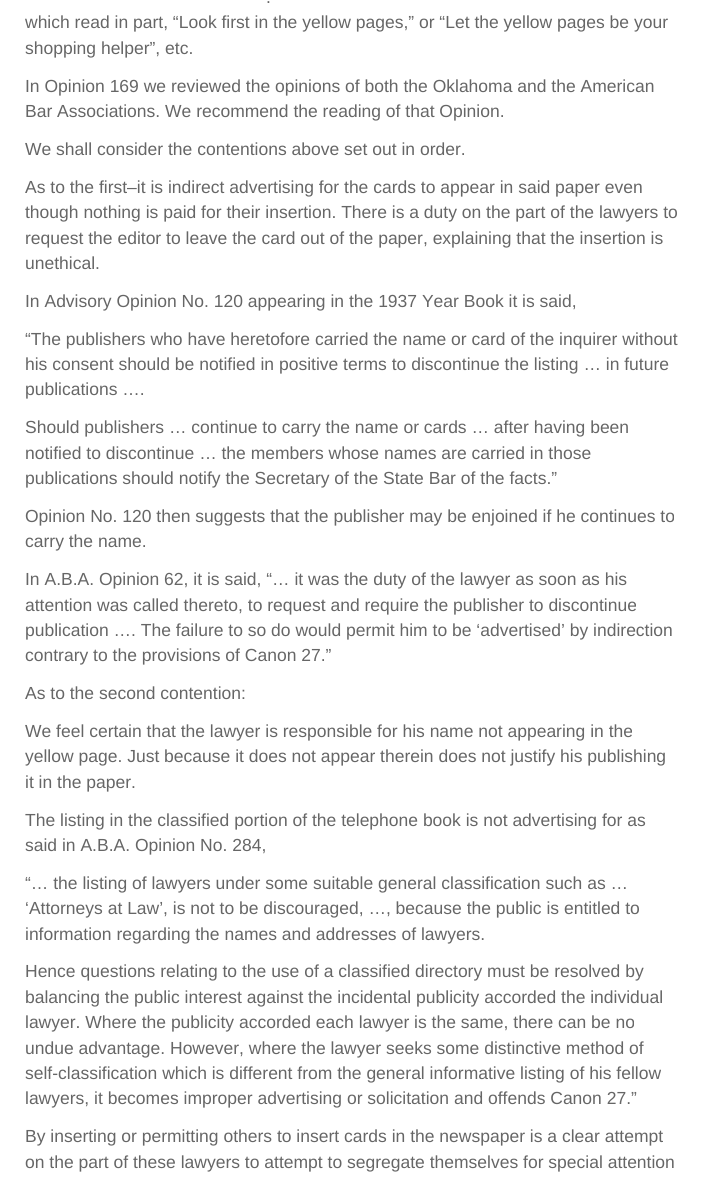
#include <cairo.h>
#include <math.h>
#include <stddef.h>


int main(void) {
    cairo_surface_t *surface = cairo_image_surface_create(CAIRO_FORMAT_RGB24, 703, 1186);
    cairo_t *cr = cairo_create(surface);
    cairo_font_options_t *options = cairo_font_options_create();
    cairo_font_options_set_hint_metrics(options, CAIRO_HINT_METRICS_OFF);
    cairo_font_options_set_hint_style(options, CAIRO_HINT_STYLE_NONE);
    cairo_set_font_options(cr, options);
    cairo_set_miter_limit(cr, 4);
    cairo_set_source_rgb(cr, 1, 1, 1);
    cairo_paint(cr);
    cairo_select_font_face(cr, "Liberation Sans", CAIRO_FONT_SLANT_NORMAL, CAIRO_FONT_WEIGHT_NORMAL);
    cairo_set_font_size(cr, 17.5);
    cairo_set_source_rgb(cr, 0.4, 0.4, 0.4);
    cairo_move_to(cr, 266, 3);
    cairo_show_text(cr, ".");
    cairo_move_to(cr, 25, 28);
    cairo_show_text(cr, "which read in part, “Look first in the yellow pages,” or “Let the yellow pages be your");
    cairo_move_to(cr, 25, 54);
    cairo_show_text(cr, "shopping helper”, etc.");
    cairo_move_to(cr, 25, 92);
    cairo_show_text(cr, "In Opinion 169 we reviewed the opinions of both the Oklahoma and the American");
    cairo_move_to(cr, 25, 117);
    cairo_show_text(cr, "Bar Associations. We recommend the reading of that Opinion.");
    cairo_move_to(cr, 25, 155);
    cairo_show_text(cr, "We shall consider the contentions above set out in order.");
    cairo_move_to(cr, 25, 193);
    cairo_show_text(cr, "As to the first–it is indirect advertising for the cards to appear in said paper even");
    cairo_move_to(cr, 25, 218);
    cairo_show_text(cr, "though nothing is paid for their insertion. There is a duty on the part of the lawyers to");
    cairo_move_to(cr, 25, 244);
    cairo_show_text(cr, "request the editor to leave the card out of the paper, explaining that the insertion is");
    cairo_move_to(cr, 25, 269);
    cairo_show_text(cr, "unethical.");
    cairo_move_to(cr, 25, 307);
    cairo_show_text(cr, "In Advisory Opinion No. 120 appearing in the 1937 Year Book it is said,");
    cairo_move_to(cr, 25, 345);
    cairo_show_text(cr, "“The publishers who have heretofore carried the name or card of the inquirer without");
    cairo_move_to(cr, 25, 370);
    cairo_show_text(cr, "his consent should be notified in positive terms to discontinue the listing … in future");
    cairo_move_to(cr, 25, 395);
    cairo_show_text(cr, "publications ….");
    cairo_move_to(cr, 25, 433);
    cairo_show_text(cr, "Should publishers … continue to carry the name or cards … after having been");
    cairo_move_to(cr, 25, 459);
    cairo_show_text(cr, "notified to discontinue … the members whose names are carried in those");
    cairo_move_to(cr, 25, 484);
    cairo_show_text(cr, "publications should notify the Secretary of the State Bar of the facts.”");
    cairo_move_to(cr, 25, 522);
    cairo_show_text(cr, "Opinion No. 120 then suggests that the publisher may be enjoined if he continues to");
    cairo_move_to(cr, 25, 547);
    cairo_show_text(cr, "carry the name.");
    cairo_move_to(cr, 25, 585);
    cairo_show_text(cr, "In A.B.A. Opinion 62, it is said, “… it was the duty of the lawyer as soon as his");
    cairo_move_to(cr, 25, 611);
    cairo_show_text(cr, "attention was called thereto, to request and require the publisher to discontinue");
    cairo_move_to(cr, 25, 636);
    cairo_show_text(cr, "publication …. The failure to so do would permit him to be ‘advertised’ by indirection");
    cairo_move_to(cr, 25, 661);
    cairo_show_text(cr, "contrary to the provisions of Canon 27.”");
    cairo_move_to(cr, 25, 699);
    cairo_show_text(cr, "As to the second contention:");
    cairo_move_to(cr, 25, 737);
    cairo_show_text(cr, "We feel certain that the lawyer is responsible for his name not appearing in the");
    cairo_move_to(cr, 25, 762);
    cairo_show_text(cr, "yellow page. Just because it does not appear therein does not justify his publishing");
    cairo_move_to(cr, 25, 788);
    cairo_show_text(cr, "it in the paper.");
    cairo_move_to(cr, 25, 826);
    cairo_show_text(cr, "The listing in the classified portion of the telephone book is not advertising for as");
    cairo_move_to(cr, 25, 851);
    cairo_show_text(cr, "said in A.B.A. Opinion No. 284,");
    cairo_move_to(cr, 25, 889);
    cairo_show_text(cr, "“… the listing of lawyers under some suitable general classification such as …");
    cairo_move_to(cr, 25, 914);
    cairo_show_text(cr, "‘Attorneys at Law’, is not to be discouraged, …, because the public is entitled to");
    cairo_move_to(cr, 25, 940);
    cairo_show_text(cr, "information regarding the names and addresses of lawyers.");
    cairo_move_to(cr, 25, 977);
    cairo_show_text(cr, "Hence questions relating to the use of a classified directory must be resolved by");
    cairo_move_to(cr, 25, 1003);
    cairo_show_text(cr, "balancing the public interest against the incidental publicity accorded the individual");
    cairo_move_to(cr, 25, 1028);
    cairo_show_text(cr, "lawyer. Where the publicity accorded each lawyer is the same, there can be no");
    cairo_move_to(cr, 25, 1054);
    cairo_show_text(cr, "undue advantage. However, where the lawyer seeks some distinctive method of");
    cairo_move_to(cr, 25, 1079);
    cairo_show_text(cr, "self-classification which is different from the general informative listing of his fellow");
    cairo_move_to(cr, 25, 1104);
    cairo_show_text(cr, "lawyers, it becomes improper advertising or solicitation and offends Canon 27.”");
    cairo_move_to(cr, 25, 1142);
    cairo_show_text(cr, "By inserting or permitting others to insert cards in the newspaper is a clear attempt");
    cairo_move_to(cr, 25, 1168);
    cairo_show_text(cr, "on the part of these lawyers to attempt to segregate themselves for special attention");
    cairo_surface_write_to_png(surface, "page.png");
    cairo_font_options_destroy(options);
    cairo_destroy(cr);
    cairo_surface_destroy(surface);
    return 0;
}
